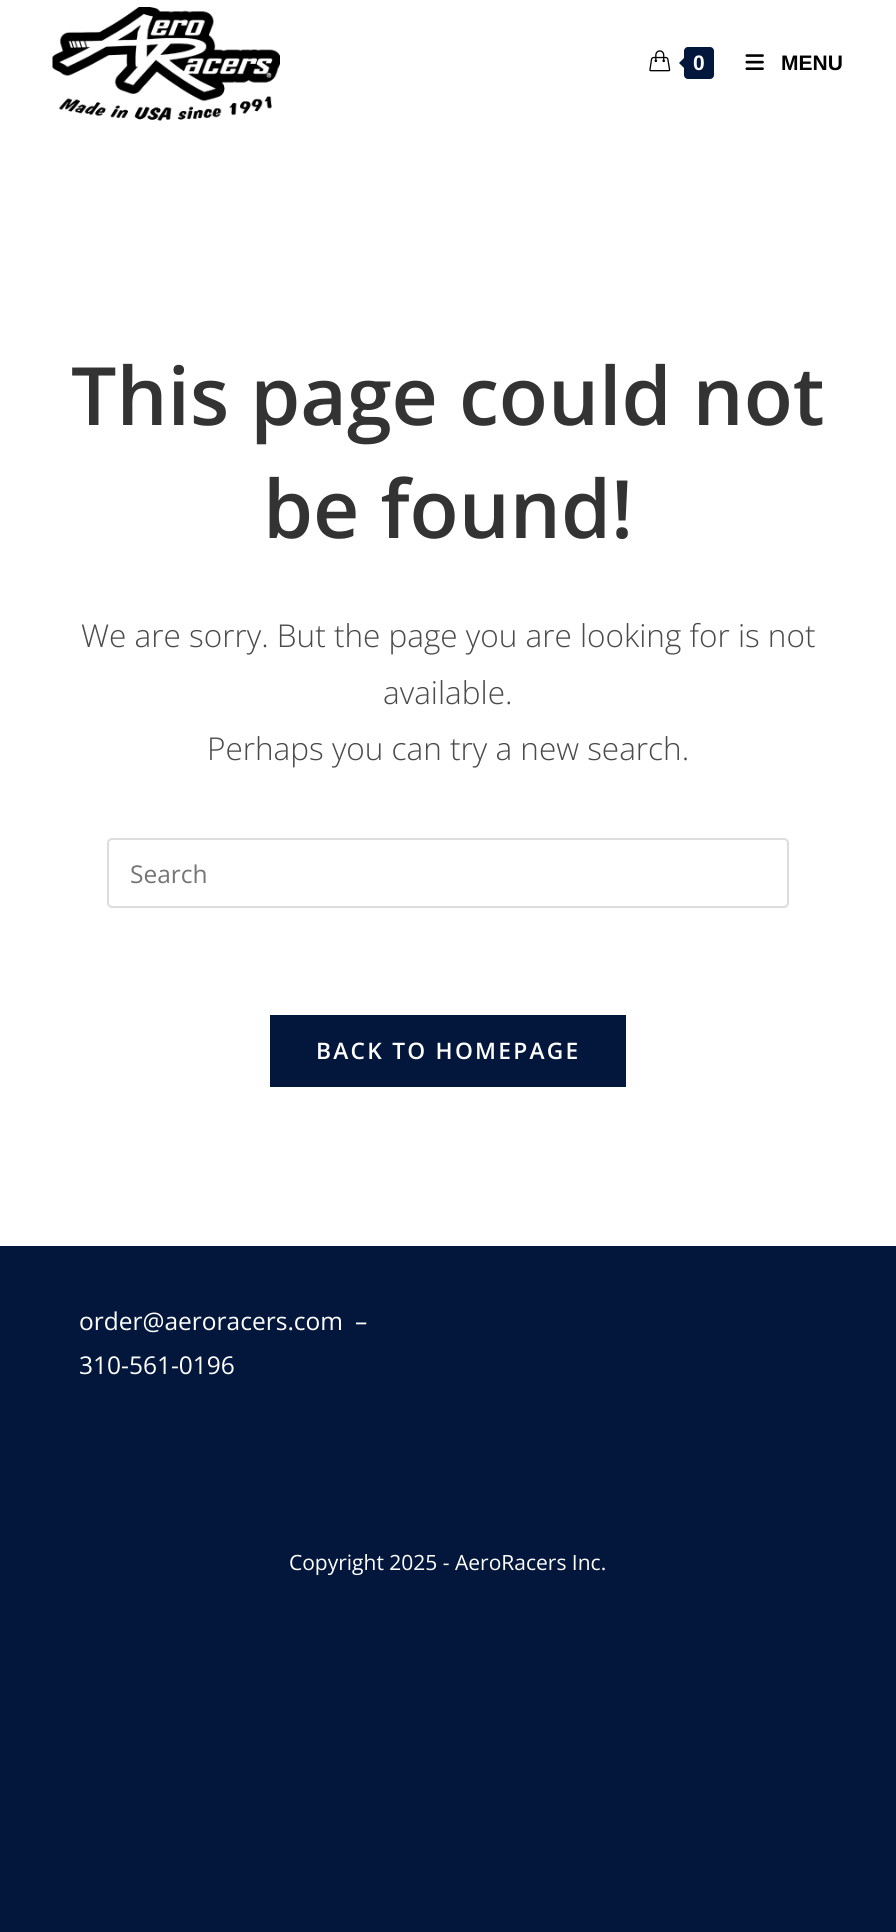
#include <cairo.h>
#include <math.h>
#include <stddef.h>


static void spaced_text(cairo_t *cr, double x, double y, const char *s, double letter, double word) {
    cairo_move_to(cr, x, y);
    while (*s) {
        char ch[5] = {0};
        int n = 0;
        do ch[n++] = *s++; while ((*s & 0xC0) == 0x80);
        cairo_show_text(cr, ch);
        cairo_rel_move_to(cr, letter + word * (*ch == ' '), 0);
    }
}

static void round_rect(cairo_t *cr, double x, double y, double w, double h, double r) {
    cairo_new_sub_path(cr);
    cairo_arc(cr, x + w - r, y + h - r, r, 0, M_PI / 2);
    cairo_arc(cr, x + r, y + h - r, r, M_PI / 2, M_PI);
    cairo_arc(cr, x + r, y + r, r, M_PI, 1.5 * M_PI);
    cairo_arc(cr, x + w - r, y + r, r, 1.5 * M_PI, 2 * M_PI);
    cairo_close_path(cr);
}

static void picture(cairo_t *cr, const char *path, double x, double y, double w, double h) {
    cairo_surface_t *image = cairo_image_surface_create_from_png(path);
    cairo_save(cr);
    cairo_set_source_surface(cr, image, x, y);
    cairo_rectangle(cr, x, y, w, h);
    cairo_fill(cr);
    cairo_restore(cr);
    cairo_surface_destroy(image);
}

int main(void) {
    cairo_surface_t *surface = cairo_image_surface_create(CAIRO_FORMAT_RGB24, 896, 1932);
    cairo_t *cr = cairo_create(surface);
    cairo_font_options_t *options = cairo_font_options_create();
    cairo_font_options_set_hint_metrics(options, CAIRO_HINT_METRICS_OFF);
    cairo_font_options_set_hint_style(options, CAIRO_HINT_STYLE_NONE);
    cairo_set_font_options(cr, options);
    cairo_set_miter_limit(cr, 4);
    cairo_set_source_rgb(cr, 0.012, 0.09, 0.235);
    cairo_paint(cr);
    cairo_set_source_rgb(cr, 1, 1, 1);
    cairo_rectangle(cr, 0, 0, 896, 1246);
    cairo_fill(cr);
    picture(cr, "img1.png", 52, 7, 228, 114);
    picture(cr, "img2.png", 649, 50, 22, 22);
    cairo_set_source_rgb(cr, 0.012, 0.09, 0.235);
    round_rect(cr, 684, 47, 30, 32, 4);
    cairo_fill(cr);
    cairo_new_path(cr);
    cairo_move_to(cr, 688, 54);
    cairo_line_to(cr, 688, 72);
    cairo_line_to(cr, 679, 63);
    cairo_close_path(cr);
    cairo_fill(cr);
    cairo_select_font_face(cr, "Liberation Sans", CAIRO_FONT_SLANT_NORMAL, CAIRO_FONT_WEIGHT_BOLD);
    cairo_set_font_size(cr, 21);
    cairo_set_source_rgb(cr, 1, 1, 1);
    cairo_move_to(cr, 693, 70);
    cairo_show_text(cr, "0");
    picture(cr, "img3.png", 745, 54, 19, 16);
    cairo_set_source_rgb(cr, 0, 0, 0);
    cairo_move_to(cr, 781, 70);
    cairo_show_text(cr, "MENU");
    cairo_select_font_face(cr, "Open Sans SemiBold", CAIRO_FONT_SLANT_NORMAL, CAIRO_FONT_WEIGHT_NORMAL);
    cairo_set_font_size(cr, 80.5);
    cairo_set_source_rgb(cr, 0.2, 0.2, 0.2);
    cairo_move_to(cr, 71, 425);
    cairo_show_text(cr, "This page could not");
    cairo_move_to(cr, 263, 538);
    cairo_show_text(cr, "be found!");
    cairo_select_font_face(cr, "Open Sans Light", CAIRO_FONT_SLANT_NORMAL, CAIRO_FONT_WEIGHT_NORMAL);
    cairo_set_font_size(cr, 31.5);
    cairo_set_source_rgb(cr, 0.29, 0.29, 0.29);
    cairo_move_to(cr, 81, 647);
    cairo_show_text(cr, "We are sorry. But the page you are looking for is not");
    cairo_move_to(cr, 383, 704);
    cairo_show_text(cr, "available.");
    cairo_move_to(cr, 207, 760);
    cairo_show_text(cr, "Perhaps you can try a new search.");
    round_rect(cr, 108, 839, 680, 68, 4);
    cairo_set_source_rgb(cr, 0.867, 0.867, 0.867);
    cairo_stroke(cr);
    cairo_select_font_face(cr, "Open Sans", CAIRO_FONT_SLANT_NORMAL, CAIRO_FONT_WEIGHT_NORMAL);
    cairo_set_font_size(cr, 24.5);
    cairo_set_source_rgb(cr, 0.459, 0.459, 0.459);
    cairo_move_to(cr, 130, 883);
    cairo_show_text(cr, "Search");
    cairo_set_source_rgb(cr, 0.012, 0.09, 0.235);
    cairo_rectangle(cr, 270, 1015, 356, 72);
    cairo_fill(cr);
    cairo_select_font_face(cr, "Open Sans SemiBold", CAIRO_FONT_SLANT_NORMAL, CAIRO_FONT_WEIGHT_NORMAL);
    cairo_set_font_size(cr, 22.75);
    cairo_set_source_rgb(cr, 1, 1, 1);
    spaced_text(cr, 316, 1059, "BACK TO HOMEPAGE", 2.25, 0);
    cairo_select_font_face(cr, "Open Sans", CAIRO_FONT_SLANT_NORMAL, CAIRO_FONT_WEIGHT_NORMAL);
    cairo_set_font_size(cr, 24.5);
    cairo_move_to(cr, 79, 1330);
    cairo_show_text(cr, "order@aeroracers.com");
    cairo_move_to(cr, 355, 1330);
    cairo_show_text(cr, "–");
    cairo_move_to(cr, 79, 1374);
    cairo_show_text(cr, "310-561-0196");
    cairo_set_font_size(cr, 21);
    cairo_move_to(cr, 289, 1570);
    cairo_show_text(cr, "Copyright 2025 - AeroRacers Inc.");
    cairo_surface_write_to_png(surface, "page.png");
    cairo_font_options_destroy(options);
    cairo_destroy(cr);
    cairo_surface_destroy(surface);
    return 0;
}
